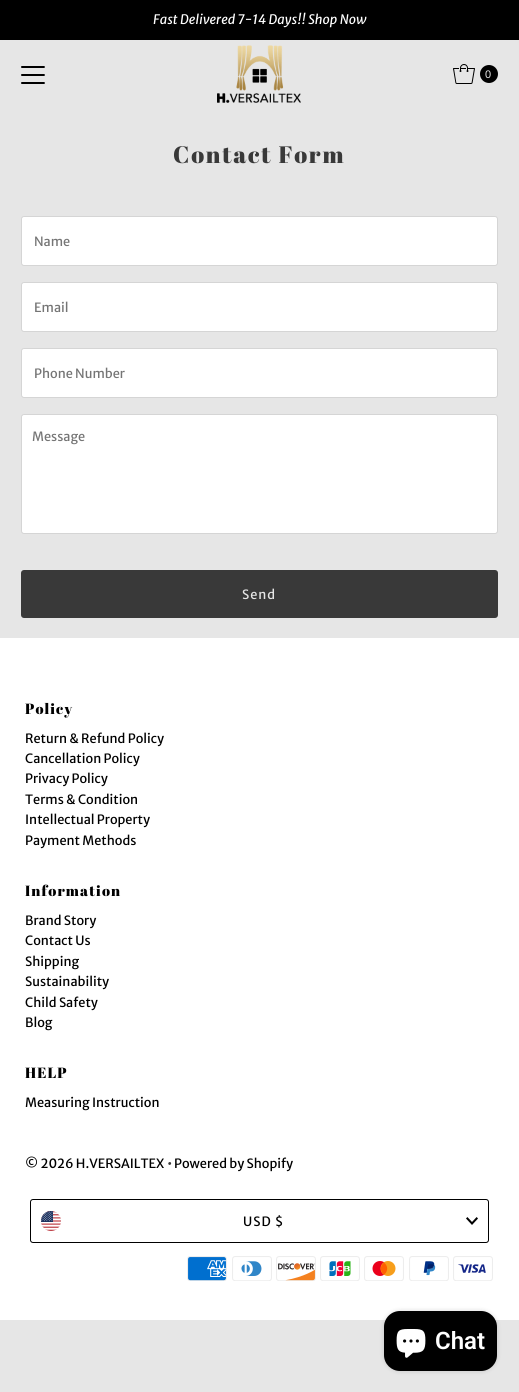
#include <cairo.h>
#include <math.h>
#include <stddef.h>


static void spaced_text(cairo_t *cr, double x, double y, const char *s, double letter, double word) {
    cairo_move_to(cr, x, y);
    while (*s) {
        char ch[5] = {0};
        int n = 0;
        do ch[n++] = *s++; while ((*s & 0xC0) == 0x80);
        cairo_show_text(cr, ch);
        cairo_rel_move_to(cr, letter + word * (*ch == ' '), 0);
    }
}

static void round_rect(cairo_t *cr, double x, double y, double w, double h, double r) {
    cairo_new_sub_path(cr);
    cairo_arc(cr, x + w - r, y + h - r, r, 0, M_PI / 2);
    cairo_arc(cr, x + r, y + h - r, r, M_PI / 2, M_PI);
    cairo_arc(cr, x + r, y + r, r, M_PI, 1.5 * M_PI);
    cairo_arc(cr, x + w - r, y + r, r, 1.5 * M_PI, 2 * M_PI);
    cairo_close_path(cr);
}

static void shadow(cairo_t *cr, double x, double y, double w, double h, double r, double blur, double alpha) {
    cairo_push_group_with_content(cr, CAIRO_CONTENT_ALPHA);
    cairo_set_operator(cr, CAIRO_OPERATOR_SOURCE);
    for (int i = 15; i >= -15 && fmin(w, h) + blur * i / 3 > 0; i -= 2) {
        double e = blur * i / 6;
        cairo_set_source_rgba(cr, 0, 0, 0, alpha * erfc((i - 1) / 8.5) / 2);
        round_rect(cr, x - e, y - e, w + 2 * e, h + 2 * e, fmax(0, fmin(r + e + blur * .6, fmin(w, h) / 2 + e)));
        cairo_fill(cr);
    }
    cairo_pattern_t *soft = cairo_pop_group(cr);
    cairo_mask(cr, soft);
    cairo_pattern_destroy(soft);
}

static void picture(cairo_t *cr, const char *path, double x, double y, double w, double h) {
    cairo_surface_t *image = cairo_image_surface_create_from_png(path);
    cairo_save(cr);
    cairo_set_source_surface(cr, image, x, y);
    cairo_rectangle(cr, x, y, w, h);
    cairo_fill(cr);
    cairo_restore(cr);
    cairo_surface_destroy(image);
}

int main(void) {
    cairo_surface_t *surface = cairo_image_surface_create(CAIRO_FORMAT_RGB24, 519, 1392);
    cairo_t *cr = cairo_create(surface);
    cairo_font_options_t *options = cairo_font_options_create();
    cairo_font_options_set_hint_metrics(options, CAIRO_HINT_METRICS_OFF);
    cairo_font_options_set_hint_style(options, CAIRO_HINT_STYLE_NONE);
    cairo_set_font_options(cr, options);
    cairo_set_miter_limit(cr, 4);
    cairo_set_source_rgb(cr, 0.902, 0.902, 0.902);
    cairo_paint(cr);
    cairo_set_source_rgb(cr, 0, 0, 0);
    cairo_rectangle(cr, 0, 0, 519, 40);
    cairo_fill(cr);
    cairo_select_font_face(cr, "Merriweather Sans", CAIRO_FONT_SLANT_ITALIC, CAIRO_FONT_WEIGHT_NORMAL);
    cairo_set_font_size(cr, 13);
    cairo_set_source_rgb(cr, 1, 1, 1);
    cairo_move_to(cr, 153, 24);
    cairo_show_text(cr, "Fast Delivered 7-14 Days!! Shop Now");
    picture(cr, "img1.png", 21, 66, 24, 18);
    picture(cr, "img2.png", 217, 45, 84, 58);
    picture(cr, "img3.png", 453, 64, 22, 20);
    cairo_set_source_rgb(cr, 0, 0, 0);
    cairo_arc(cr, 489, 74, 9, 0, 2 * M_PI);
    cairo_fill(cr);
    cairo_select_font_face(cr, "Liberation Sans", CAIRO_FONT_SLANT_NORMAL, CAIRO_FONT_WEIGHT_NORMAL);
    cairo_set_font_size(cr, 11);
    cairo_set_source_rgb(cr, 0.902, 0.902, 0.902);
    cairo_move_to(cr, 485, 78);
    cairo_show_text(cr, "0");
    cairo_select_font_face(cr, "Abril Fatface", CAIRO_FONT_SLANT_NORMAL, CAIRO_FONT_WEIGHT_NORMAL);
    cairo_set_font_size(cr, 23.75);
    cairo_set_source_rgb(cr, 0.224, 0.224, 0.224);
    spaced_text(cr, 173, 163, "Contact Form", 1.75, 0);
    cairo_set_source_rgb(cr, 1, 1, 1);
    round_rect(cr, 21.5, 216.5, 476, 49, 2.5);
    cairo_fill_preserve(cr);
    cairo_set_source_rgb(cr, 0.835, 0.835, 0.835);
    cairo_set_line_width(cr, 1);
    cairo_stroke(cr);
    cairo_select_font_face(cr, "Merriweather Sans", CAIRO_FONT_SLANT_NORMAL, CAIRO_FONT_WEIGHT_NORMAL);
    cairo_set_font_size(cr, 12.75);
    cairo_set_source_rgb(cr, 0.459, 0.459, 0.459);
    cairo_move_to(cr, 34, 246);
    cairo_show_text(cr, "Name");
    cairo_set_source_rgb(cr, 1, 1, 1);
    round_rect(cr, 21.5, 282.5, 476, 49, 2.5);
    cairo_fill_preserve(cr);
    cairo_set_source_rgb(cr, 0.835, 0.835, 0.835);
    cairo_stroke(cr);
    cairo_set_source_rgb(cr, 0.459, 0.459, 0.459);
    cairo_move_to(cr, 34, 312);
    cairo_show_text(cr, "Email");
    cairo_set_source_rgb(cr, 1, 1, 1);
    round_rect(cr, 21.5, 348.5, 476, 49, 2.5);
    cairo_fill_preserve(cr);
    cairo_set_source_rgb(cr, 0.835, 0.835, 0.835);
    cairo_stroke(cr);
    cairo_set_source_rgb(cr, 0.459, 0.459, 0.459);
    cairo_move_to(cr, 34, 378);
    cairo_show_text(cr, "Phone Number");
    cairo_set_source_rgb(cr, 1, 1, 1);
    round_rect(cr, 21.5, 414.5, 476, 119, 2.5);
    cairo_fill_preserve(cr);
    cairo_set_source_rgb(cr, 0.835, 0.835, 0.835);
    cairo_stroke(cr);
    cairo_set_source_rgb(cr, 0.459, 0.459, 0.459);
    cairo_move_to(cr, 32, 441);
    cairo_show_text(cr, "Message");
    cairo_set_source_rgb(cr, 0.224, 0.224, 0.224);
    round_rect(cr, 21, 570, 477, 48, 3);
    cairo_fill(cr);
    cairo_set_source_rgb(cr, 0.902, 0.902, 0.902);
    spaced_text(cr, 242, 599, "Send", 1, 0);
    cairo_set_source_rgb(cr, 1, 1, 1);
    cairo_rectangle(cr, 0, 638, 519, 682);
    cairo_fill(cr);
    cairo_select_font_face(cr, "Abril Fatface", CAIRO_FONT_SLANT_NORMAL, CAIRO_FONT_WEIGHT_NORMAL);
    cairo_set_font_size(cr, 14.75);
    cairo_set_source_rgb(cr, 0, 0, 0);
    spaced_text(cr, 25, 714, "Policy", 1.1, 0);
    cairo_select_font_face(cr, "Merriweather Sans", CAIRO_FONT_SLANT_NORMAL, CAIRO_FONT_WEIGHT_NORMAL);
    cairo_set_font_size(cr, 12.75);
    cairo_move_to(cr, 25, 743);
    cairo_show_text(cr, "Return & Refund Policy");
    cairo_move_to(cr, 25, 763);
    cairo_show_text(cr, "Cancellation Policy");
    cairo_move_to(cr, 25, 783);
    cairo_show_text(cr, "Privacy Policy");
    cairo_move_to(cr, 25, 804);
    cairo_show_text(cr, "Terms & Condition");
    cairo_move_to(cr, 25, 824);
    cairo_show_text(cr, "Intellectual Property");
    cairo_move_to(cr, 25, 845);
    cairo_show_text(cr, "Payment Methods");
    cairo_select_font_face(cr, "Abril Fatface", CAIRO_FONT_SLANT_NORMAL, CAIRO_FONT_WEIGHT_NORMAL);
    cairo_set_font_size(cr, 14.75);
    spaced_text(cr, 25, 896, "Information", 1.1, 0);
    cairo_select_font_face(cr, "Merriweather Sans", CAIRO_FONT_SLANT_NORMAL, CAIRO_FONT_WEIGHT_NORMAL);
    cairo_set_font_size(cr, 12.75);
    cairo_move_to(cr, 25, 925);
    cairo_show_text(cr, "Brand Story");
    cairo_move_to(cr, 25, 945);
    cairo_show_text(cr, "Contact Us");
    cairo_move_to(cr, 25, 966);
    cairo_show_text(cr, "Shipping");
    cairo_move_to(cr, 25, 986);
    cairo_show_text(cr, "Sustainability");
    cairo_move_to(cr, 25, 1007);
    cairo_show_text(cr, "Child Safety");
    cairo_move_to(cr, 25, 1027);
    cairo_show_text(cr, "Blog");
    cairo_select_font_face(cr, "Abril Fatface", CAIRO_FONT_SLANT_NORMAL, CAIRO_FONT_WEIGHT_NORMAL);
    cairo_set_font_size(cr, 14.75);
    spaced_text(cr, 25, 1078, "HELP", 1.1, 0);
    cairo_select_font_face(cr, "Merriweather Sans", CAIRO_FONT_SLANT_NORMAL, CAIRO_FONT_WEIGHT_NORMAL);
    cairo_set_font_size(cr, 12.75);
    cairo_move_to(cr, 25, 1107);
    cairo_show_text(cr, "Measuring Instruction");
    cairo_move_to(cr, 25, 1168);
    cairo_show_text(cr, "© 2026 H.VERSAILTEX");
    cairo_set_source_rgb(cr, 0.224, 0.224, 0.224);
    cairo_move_to(cr, 167, 1168);
    cairo_show_text(cr, "•");
    cairo_set_source_rgb(cr, 0, 0, 0);
    cairo_move_to(cr, 174, 1168);
    cairo_show_text(cr, "Powered by Shopify");
    round_rect(cr, 30.5, 1199.5, 458, 43, 2.5);
    cairo_stroke(cr);
    picture(cr, "img4.png", 41, 1211, 20, 20);
    spaced_text(cr, 243, 1226, "USD $", 1, 0);
    picture(cr, "img5.png", 466, 1217, 12, 8);
    picture(cr, "img6.png", 187, 1256, 40, 25);
    picture(cr, "img7.png", 232, 1256, 40, 25);
    picture(cr, "img8.png", 276, 1256, 40, 25);
    picture(cr, "img9.png", 320, 1256, 40, 25);
    picture(cr, "img10.png", 364, 1256, 40, 25);
    picture(cr, "img11.png", 409, 1256, 40, 25);
    picture(cr, "img12.png", 453, 1256, 40, 25);
    cairo_set_source_rgb(cr, 0, 0, 0);
    shadow(cr, 384, 1311, 113, 60, 16, 2.5, 0.15);
    cairo_set_source_rgb(cr, 0, 0, 0);
    round_rect(cr, 384, 1311, 113, 60, 16);
    cairo_fill(cr);
    picture(cr, "img13.png", 396, 1329, 30, 29);
    cairo_select_font_face(cr, "Roboto SemiBold", CAIRO_FONT_SLANT_NORMAL, CAIRO_FONT_WEIGHT_NORMAL);
    cairo_set_font_size(cr, 24);
    cairo_set_source_rgb(cr, 1, 1, 1);
    cairo_move_to(cr, 435, 1349);
    cairo_show_text(cr, "Chat");
    cairo_surface_write_to_png(surface, "page.png");
    cairo_font_options_destroy(options);
    cairo_destroy(cr);
    cairo_surface_destroy(surface);
    return 0;
}
